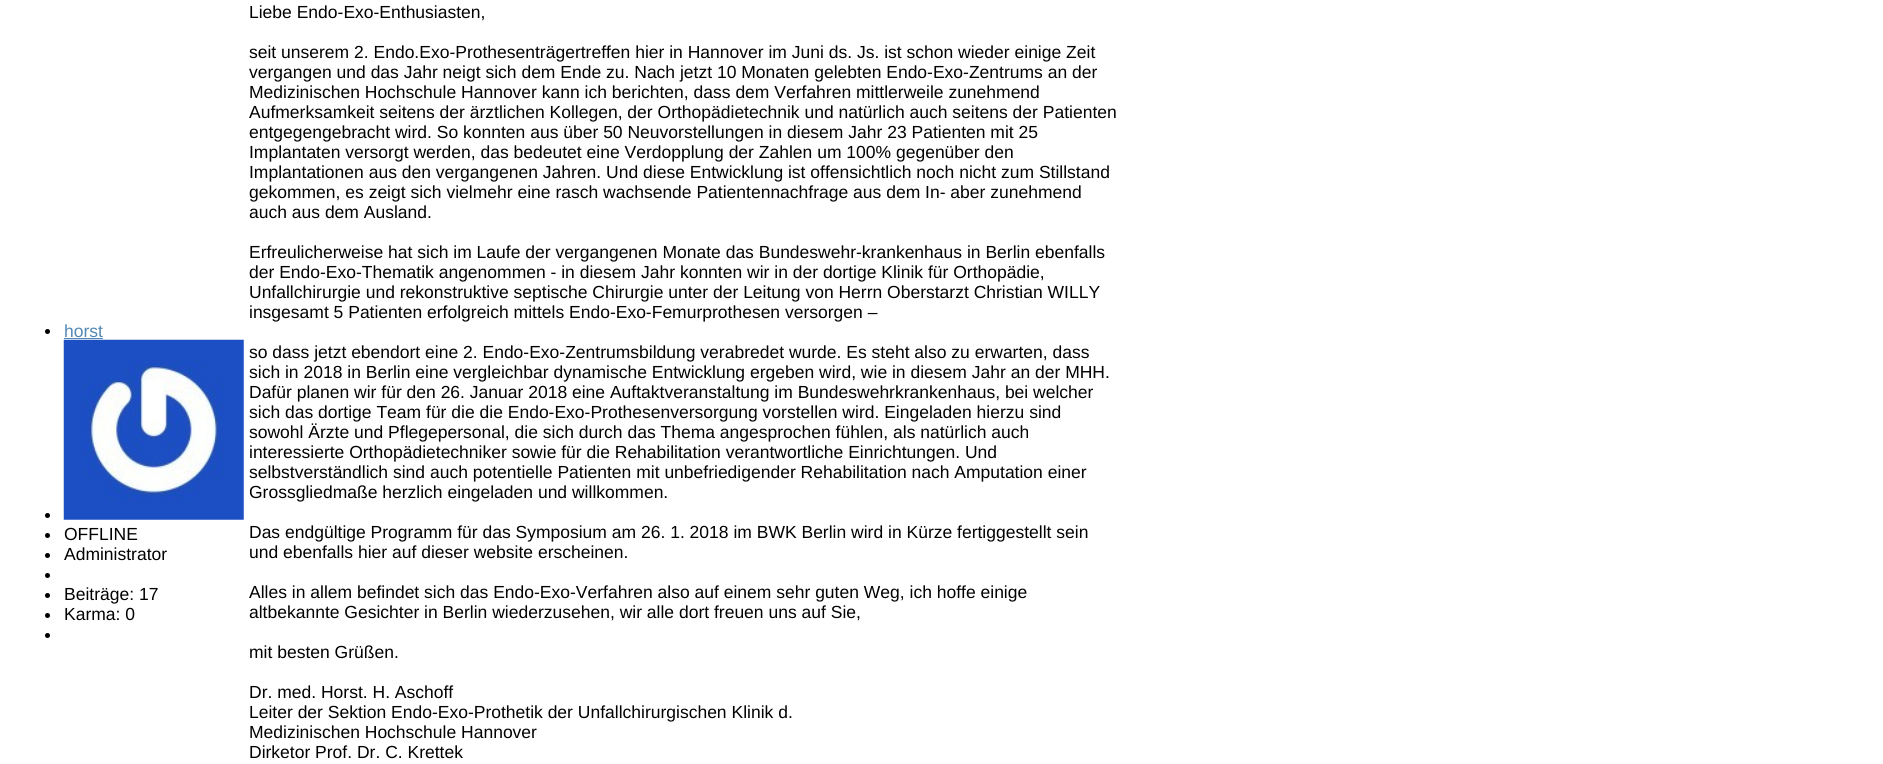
#include <cairo.h>
#include <math.h>
#include <stddef.h>


static void picture(cairo_t *cr, const char *path, double x, double y, double w, double h) {
    cairo_surface_t *image = cairo_image_surface_create_from_png(path);
    cairo_save(cr);
    cairo_set_source_surface(cr, image, x, y);
    cairo_rectangle(cr, x, y, w, h);
    cairo_fill(cr);
    cairo_restore(cr);
    cairo_surface_destroy(image);
}

int main(void) {
    cairo_surface_t *surface = cairo_image_surface_create(CAIRO_FORMAT_RGB24, 1883, 764);
    cairo_t *cr = cairo_create(surface);
    cairo_font_options_t *options = cairo_font_options_create();
    cairo_font_options_set_hint_metrics(options, CAIRO_HINT_METRICS_OFF);
    cairo_font_options_set_hint_style(options, CAIRO_HINT_STYLE_NONE);
    cairo_set_font_options(cr, options);
    cairo_set_miter_limit(cr, 4);
    cairo_set_source_rgb(cr, 1, 1, 1);
    cairo_paint(cr);
    cairo_set_source_rgb(cr, 0, 0, 0);
    cairo_arc(cr, 47.5, 331.5, 2.5, 0, 2 * M_PI);
    cairo_fill(cr);
    cairo_select_font_face(cr, "Liberation Sans", CAIRO_FONT_SLANT_NORMAL, CAIRO_FONT_WEIGHT_NORMAL);
    cairo_set_font_size(cr, 17.5);
    cairo_set_source_rgb(cr, 0.325, 0.533, 0.706);
    cairo_move_to(cr, 64, 337);
    cairo_show_text(cr, "horst");
    cairo_rectangle(cr, 64, 338, 39, 1);
    cairo_fill(cr);
    cairo_set_source_rgb(cr, 0, 0, 0);
    cairo_arc(cr, 47.5, 515.5, 2.5, 0, 2 * M_PI);
    cairo_fill(cr);
    picture(cr, "img1.png", 63, 339, 181, 181);
    cairo_arc(cr, 47.5, 535.5, 2.5, 0, 2 * M_PI);
    cairo_fill(cr);
    cairo_move_to(cr, 64, 540);
    cairo_show_text(cr, "OFFLINE");
    cairo_new_path(cr);
    cairo_arc(cr, 47.5, 555.5, 2.5, 0, 2 * M_PI);
    cairo_fill(cr);
    cairo_move_to(cr, 64, 560);
    cairo_show_text(cr, "Administrator");
    cairo_new_path(cr);
    cairo_arc(cr, 47.5, 575.5, 2.5, 0, 2 * M_PI);
    cairo_fill(cr);
    cairo_arc(cr, 47.5, 595.5, 2.5, 0, 2 * M_PI);
    cairo_fill(cr);
    cairo_move_to(cr, 64, 600);
    cairo_show_text(cr, "Beiträge: 17");
    cairo_new_path(cr);
    cairo_arc(cr, 47.5, 615.5, 2.5, 0, 2 * M_PI);
    cairo_fill(cr);
    cairo_move_to(cr, 64, 620);
    cairo_show_text(cr, "Karma: 0");
    cairo_new_path(cr);
    cairo_arc(cr, 47.5, 635.5, 2.5, 0, 2 * M_PI);
    cairo_fill(cr);
    cairo_move_to(cr, 249, 18);
    cairo_show_text(cr, "Liebe Endo-Exo-Enthusiasten,");
    cairo_move_to(cr, 249, 58);
    cairo_show_text(cr, "seit unserem 2. Endo.Exo-Prothesenträgertreffen hier in Hannover im Juni ds. Js. ist schon wieder einige Zeit");
    cairo_move_to(cr, 249, 78);
    cairo_show_text(cr, "vergangen und das Jahr neigt sich dem Ende zu. Nach jetzt 10 Monaten gelebten Endo-Exo-Zentrums an der");
    cairo_move_to(cr, 249, 98);
    cairo_show_text(cr, "Medizinischen Hochschule Hannover kann ich berichten, dass dem Verfahren mittlerweile zunehmend");
    cairo_move_to(cr, 249, 118);
    cairo_show_text(cr, "Aufmerksamkeit seitens der ärztlichen Kollegen, der Orthopädietechnik und natürlich auch seitens der Patienten");
    cairo_move_to(cr, 249, 138);
    cairo_show_text(cr, "entgegengebracht wird. So konnten aus über 50 Neuvorstellungen in diesem Jahr 23 Patienten mit 25");
    cairo_move_to(cr, 249, 158);
    cairo_show_text(cr, "Implantaten versorgt werden, das bedeutet eine Verdopplung der Zahlen um 100% gegenüber den");
    cairo_move_to(cr, 249, 178);
    cairo_show_text(cr, "Implantationen aus den vergangenen Jahren. Und diese Entwicklung ist offensichtlich noch nicht zum Stillstand");
    cairo_move_to(cr, 249, 198);
    cairo_show_text(cr, "gekommen, es zeigt sich vielmehr eine rasch wachsende Patientennachfrage aus dem In- aber zunehmend");
    cairo_move_to(cr, 249, 218);
    cairo_show_text(cr, "auch aus dem Ausland.");
    cairo_move_to(cr, 249, 258);
    cairo_show_text(cr, "Erfreulicherweise hat sich im Laufe der vergangenen Monate das Bundeswehr-krankenhaus in Berlin ebenfalls");
    cairo_move_to(cr, 249, 278);
    cairo_show_text(cr, "der Endo-Exo-Thematik angenommen - in diesem Jahr konnten wir in der dortige Klinik für Orthopädie,");
    cairo_move_to(cr, 249, 298);
    cairo_show_text(cr, "Unfallchirurgie und rekonstruktive septische Chirurgie unter der Leitung von Herrn Oberstarzt Christian WILLY");
    cairo_move_to(cr, 249, 318);
    cairo_show_text(cr, "insgesamt 5 Patienten erfolgreich mittels Endo-Exo-Femurprothesen versorgen –");
    cairo_move_to(cr, 249, 358);
    cairo_show_text(cr, "so dass jetzt ebendort eine 2. Endo-Exo-Zentrumsbildung verabredet wurde. Es steht also zu erwarten, dass");
    cairo_move_to(cr, 249, 378);
    cairo_show_text(cr, "sich in 2018 in Berlin eine vergleichbar dynamische Entwicklung ergeben wird, wie in diesem Jahr an der MHH.");
    cairo_move_to(cr, 249, 398);
    cairo_show_text(cr, "Dafür planen wir für den 26. Januar 2018 eine Auftaktveranstaltung im Bundeswehrkrankenhaus, bei welcher");
    cairo_move_to(cr, 249, 418);
    cairo_show_text(cr, "sich das dortige Team für die die Endo-Exo-Prothesenversorgung vorstellen wird. Eingeladen hierzu sind");
    cairo_move_to(cr, 249, 438);
    cairo_show_text(cr, "sowohl Ärzte und Pflegepersonal, die sich durch das Thema angesprochen fühlen, als natürlich auch");
    cairo_move_to(cr, 249, 458);
    cairo_show_text(cr, "interessierte Orthopädietechniker sowie für die Rehabilitation verantwortliche Einrichtungen. Und");
    cairo_move_to(cr, 249, 478);
    cairo_show_text(cr, "selbstverständlich sind auch potentielle Patienten mit unbefriedigender Rehabilitation nach Amputation einer");
    cairo_move_to(cr, 249, 498);
    cairo_show_text(cr, "Grossgliedmaße herzlich eingeladen und willkommen.");
    cairo_move_to(cr, 249, 538);
    cairo_show_text(cr, "Das endgültige Programm für das Symposium am 26. 1. 2018 im BWK Berlin wird in Kürze fertiggestellt sein");
    cairo_move_to(cr, 249, 558);
    cairo_show_text(cr, "und ebenfalls hier auf dieser website erscheinen.");
    cairo_move_to(cr, 249, 598);
    cairo_show_text(cr, "Alles in allem befindet sich das Endo-Exo-Verfahren also auf einem sehr guten Weg, ich hoffe einige");
    cairo_move_to(cr, 249, 618);
    cairo_show_text(cr, "altbekannte Gesichter in Berlin wiederzusehen, wir alle dort freuen uns auf Sie,");
    cairo_move_to(cr, 249, 658);
    cairo_show_text(cr, "mit besten Grüßen.");
    cairo_move_to(cr, 249, 698);
    cairo_show_text(cr, "Dr. med. Horst. H. Aschoff");
    cairo_move_to(cr, 249, 718);
    cairo_show_text(cr, "Leiter der Sektion Endo-Exo-Prothetik der Unfallchirurgischen Klinik d.");
    cairo_move_to(cr, 249, 738);
    cairo_show_text(cr, "Medizinischen Hochschule Hannover");
    cairo_move_to(cr, 249, 758);
    cairo_show_text(cr, "Dirketor Prof. Dr. C. Krettek");
    cairo_surface_write_to_png(surface, "page.png");
    cairo_font_options_destroy(options);
    cairo_destroy(cr);
    cairo_surface_destroy(surface);
    return 0;
}
